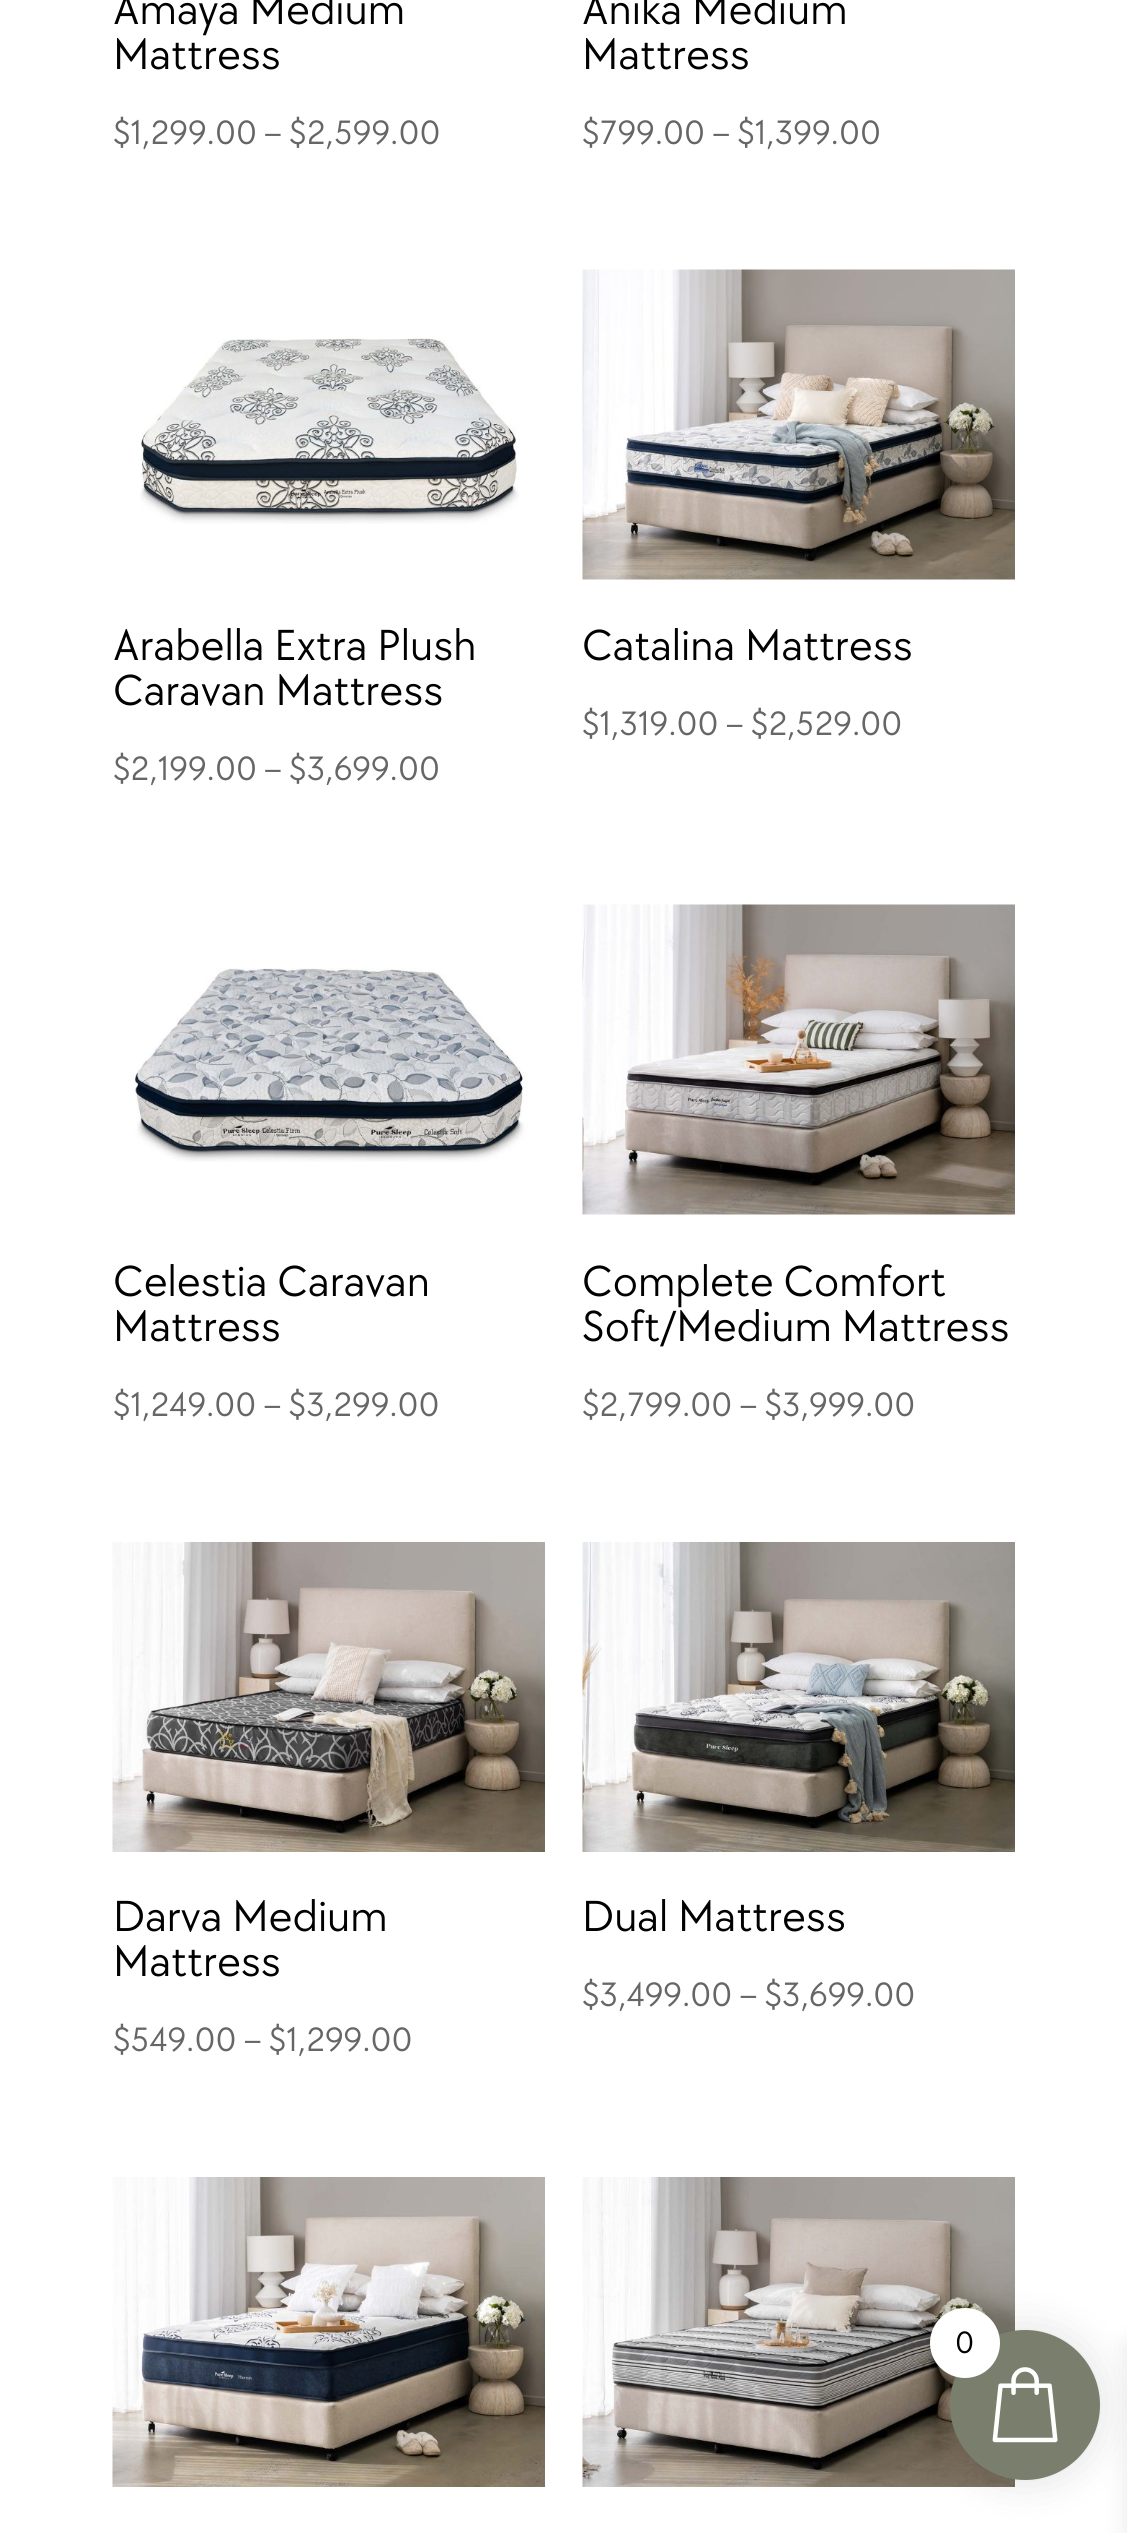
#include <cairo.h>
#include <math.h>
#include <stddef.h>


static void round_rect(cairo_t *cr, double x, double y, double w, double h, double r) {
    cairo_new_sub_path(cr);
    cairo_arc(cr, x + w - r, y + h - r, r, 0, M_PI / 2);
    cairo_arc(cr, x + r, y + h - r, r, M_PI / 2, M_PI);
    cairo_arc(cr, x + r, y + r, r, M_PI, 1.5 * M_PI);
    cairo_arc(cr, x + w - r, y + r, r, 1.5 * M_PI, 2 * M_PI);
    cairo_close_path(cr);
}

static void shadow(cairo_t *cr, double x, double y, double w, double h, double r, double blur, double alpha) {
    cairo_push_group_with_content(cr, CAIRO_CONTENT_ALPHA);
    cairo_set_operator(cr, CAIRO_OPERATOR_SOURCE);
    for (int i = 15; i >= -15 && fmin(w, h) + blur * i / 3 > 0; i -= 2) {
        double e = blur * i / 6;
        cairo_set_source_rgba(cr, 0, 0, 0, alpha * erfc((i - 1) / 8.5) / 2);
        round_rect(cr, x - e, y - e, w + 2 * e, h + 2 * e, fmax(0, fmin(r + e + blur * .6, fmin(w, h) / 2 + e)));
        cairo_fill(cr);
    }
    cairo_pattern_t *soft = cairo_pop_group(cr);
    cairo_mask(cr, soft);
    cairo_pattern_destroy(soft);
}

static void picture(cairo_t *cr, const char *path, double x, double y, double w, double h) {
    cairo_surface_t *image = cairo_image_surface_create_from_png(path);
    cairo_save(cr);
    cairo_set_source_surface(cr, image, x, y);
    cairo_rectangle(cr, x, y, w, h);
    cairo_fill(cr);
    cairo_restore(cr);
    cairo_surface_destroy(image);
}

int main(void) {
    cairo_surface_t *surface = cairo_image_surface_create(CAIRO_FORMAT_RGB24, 1127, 2533);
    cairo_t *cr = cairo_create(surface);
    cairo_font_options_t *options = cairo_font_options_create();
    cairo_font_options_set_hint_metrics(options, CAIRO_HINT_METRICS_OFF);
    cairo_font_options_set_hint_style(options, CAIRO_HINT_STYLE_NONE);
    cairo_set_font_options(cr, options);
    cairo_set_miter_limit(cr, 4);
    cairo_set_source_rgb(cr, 1, 1, 1);
    cairo_paint(cr);
    cairo_select_font_face(cr, "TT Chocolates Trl", CAIRO_FONT_SLANT_NORMAL, CAIRO_FONT_WEIGHT_NORMAL);
    cairo_set_font_size(cr, 45);
    cairo_set_source_rgb(cr, 0, 0, 0);
    cairo_move_to(cr, 113, 24);
    cairo_show_text(cr, "Amaya Medium");
    cairo_move_to(cr, 113, 69);
    cairo_show_text(cr, "Mattress");
    cairo_set_font_size(cr, 35);
    cairo_set_source_rgb(cr, 0.4, 0.4, 0.4);
    cairo_move_to(cr, 113, 144);
    cairo_show_text(cr, "$1,299.00 – $2,599.00");
    cairo_set_font_size(cr, 45);
    cairo_set_source_rgb(cr, 0, 0, 0);
    cairo_move_to(cr, 582, 24);
    cairo_show_text(cr, "Anika Medium");
    cairo_move_to(cr, 582, 69);
    cairo_show_text(cr, "Mattress");
    cairo_set_font_size(cr, 35);
    cairo_set_source_rgb(cr, 0.4, 0.4, 0.4);
    cairo_move_to(cr, 582, 144);
    cairo_show_text(cr, "$799.00 – $1,399.00");
    picture(cr, "img1.png", 140, 338, 379, 186);
    cairo_set_font_size(cr, 45);
    cairo_set_source_rgb(cr, 0, 0, 0);
    cairo_move_to(cr, 113, 660);
    cairo_show_text(cr, "Arabella Extra Plush");
    cairo_move_to(cr, 113, 705);
    cairo_show_text(cr, "Caravan Mattress");
    cairo_set_font_size(cr, 35);
    cairo_set_source_rgb(cr, 0.4, 0.4, 0.4);
    cairo_move_to(cr, 113, 780);
    cairo_show_text(cr, "$2,199.00 – $3,699.00");
    picture(cr, "img2.png", 582, 269, 433, 311);
    cairo_set_font_size(cr, 45);
    cairo_set_source_rgb(cr, 0, 0, 0);
    cairo_move_to(cr, 582, 660);
    cairo_show_text(cr, "Catalina Mattress");
    cairo_set_font_size(cr, 35);
    cairo_set_source_rgb(cr, 0.4, 0.4, 0.4);
    cairo_move_to(cr, 582, 735);
    cairo_show_text(cr, "$1,319.00 – $2,529.00");
    picture(cr, "img3.png", 131, 966, 397, 196);
    cairo_set_font_size(cr, 45);
    cairo_set_source_rgb(cr, 0, 0, 0);
    cairo_move_to(cr, 113, 1296);
    cairo_show_text(cr, "Celestia Caravan");
    cairo_move_to(cr, 113, 1341);
    cairo_show_text(cr, "Mattress");
    cairo_set_font_size(cr, 35);
    cairo_set_source_rgb(cr, 0.4, 0.4, 0.4);
    cairo_move_to(cr, 113, 1416);
    cairo_show_text(cr, "$1,249.00 – $3,299.00");
    picture(cr, "img4.png", 582, 904, 433, 311);
    cairo_set_font_size(cr, 45);
    cairo_set_source_rgb(cr, 0, 0, 0);
    cairo_move_to(cr, 582, 1296);
    cairo_show_text(cr, "Complete Comfort");
    cairo_move_to(cr, 582, 1341);
    cairo_show_text(cr, "Soft/Medium Mattress");
    cairo_set_font_size(cr, 35);
    cairo_set_source_rgb(cr, 0.4, 0.4, 0.4);
    cairo_move_to(cr, 582, 1416);
    cairo_show_text(cr, "$2,799.00 – $3,999.00");
    picture(cr, "img5.png", 112, 1542, 433, 310);
    cairo_set_font_size(cr, 45);
    cairo_set_source_rgb(cr, 0, 0, 0);
    cairo_move_to(cr, 113, 1931);
    cairo_show_text(cr, "Darva Medium");
    cairo_move_to(cr, 113, 1976);
    cairo_show_text(cr, "Mattress");
    cairo_set_font_size(cr, 35);
    cairo_set_source_rgb(cr, 0.4, 0.4, 0.4);
    cairo_move_to(cr, 113, 2051);
    cairo_show_text(cr, "$549.00 – $1,299.00");
    picture(cr, "img6.png", 582, 1542, 433, 310);
    cairo_set_font_size(cr, 45);
    cairo_set_source_rgb(cr, 0, 0, 0);
    cairo_move_to(cr, 582, 1931);
    cairo_show_text(cr, "Dual Mattress");
    cairo_set_font_size(cr, 35);
    cairo_set_source_rgb(cr, 0.4, 0.4, 0.4);
    cairo_move_to(cr, 582, 2006);
    cairo_show_text(cr, "$3,499.00 – $3,699.00");
    picture(cr, "img7.png", 112, 2177, 433, 310);
    picture(cr, "img8.png", 582, 2177, 433, 310);
    cairo_set_source_rgb(cr, 0, 0, 0);
    shadow(cr, 945, 2325, 160, 160, 80, 19, 0.1);
    shadow(cr, 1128, 2345, 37, 188, 0, 12.5, 0.1);
    cairo_set_source_rgb(cr, 0.478, 0.494, 0.427);
    cairo_arc(cr, 1025, 2405, 75, 0, 2 * M_PI);
    cairo_fill(cr);
    picture(cr, "img9.png", 992, 2367, 66, 76);
    cairo_set_source_rgb(cr, 1, 1, 1);
    cairo_arc(cr, 965, 2343, 35, 0, 2 * M_PI);
    cairo_fill(cr);
    cairo_set_font_size(cr, 32);
    cairo_set_source_rgb(cr, 0, 0, 0);
    cairo_move_to(cr, 955, 2353);
    cairo_show_text(cr, "0");
    cairo_surface_write_to_png(surface, "page.png");
    cairo_font_options_destroy(options);
    cairo_destroy(cr);
    cairo_surface_destroy(surface);
    return 0;
}
